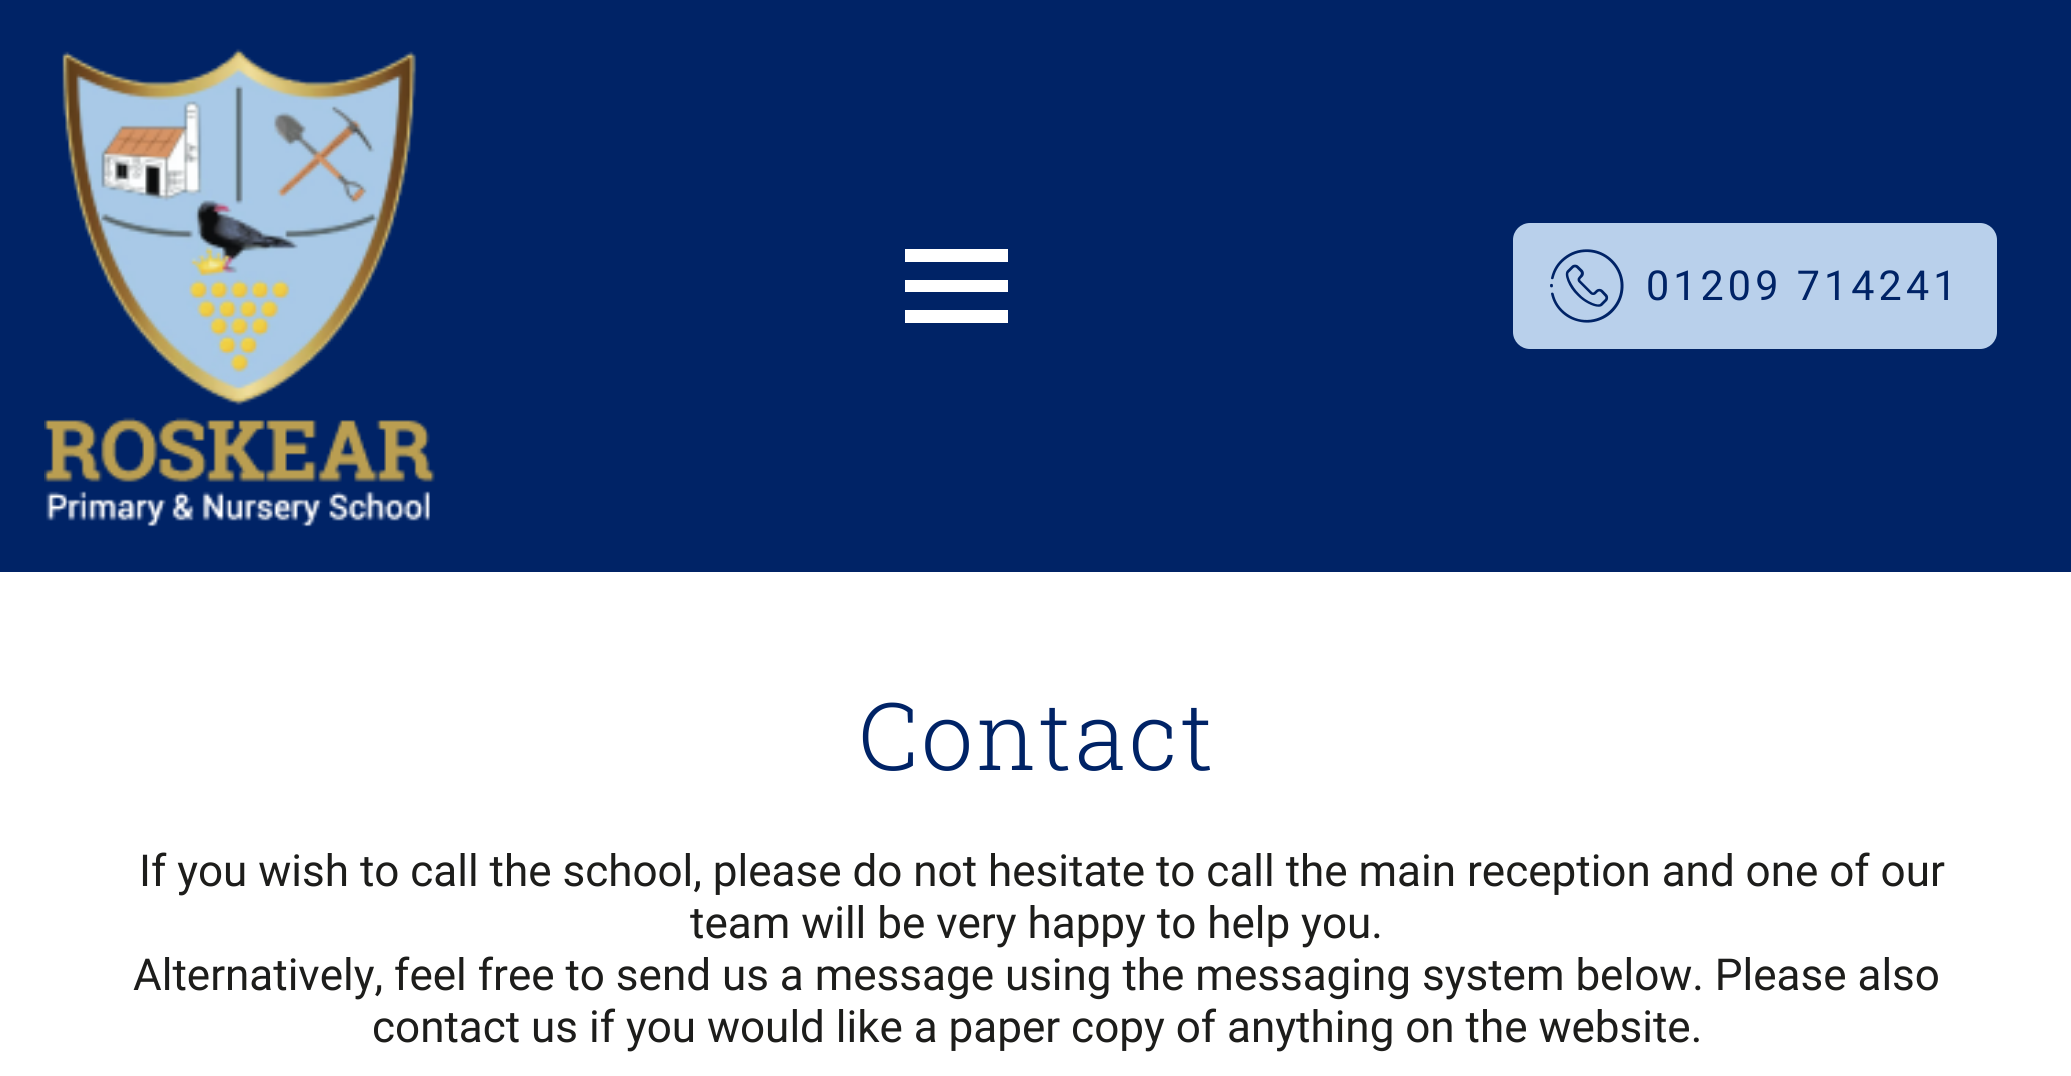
#include <cairo.h>
#include <math.h>
#include <stddef.h>


static void spaced_text(cairo_t *cr, double x, double y, const char *s, double letter, double word) {
    cairo_move_to(cr, x, y);
    while (*s) {
        char ch[5] = {0};
        int n = 0;
        do ch[n++] = *s++; while ((*s & 0xC0) == 0x80);
        cairo_show_text(cr, ch);
        cairo_rel_move_to(cr, letter + word * (*ch == ' '), 0);
    }
}

static void round_rect(cairo_t *cr, double x, double y, double w, double h, double r) {
    cairo_new_sub_path(cr);
    cairo_arc(cr, x + w - r, y + h - r, r, 0, M_PI / 2);
    cairo_arc(cr, x + r, y + h - r, r, M_PI / 2, M_PI);
    cairo_arc(cr, x + r, y + r, r, M_PI, 1.5 * M_PI);
    cairo_arc(cr, x + w - r, y + r, r, 1.5 * M_PI, 2 * M_PI);
    cairo_close_path(cr);
}

static void picture(cairo_t *cr, const char *path, double x, double y, double w, double h) {
    cairo_surface_t *image = cairo_image_surface_create_from_png(path);
    cairo_save(cr);
    cairo_set_source_surface(cr, image, x, y);
    cairo_rectangle(cr, x, y, w, h);
    cairo_fill(cr);
    cairo_restore(cr);
    cairo_surface_destroy(image);
}

int main(void) {
    cairo_surface_t *surface = cairo_image_surface_create(CAIRO_FORMAT_RGB24, 2071, 1076);
    cairo_t *cr = cairo_create(surface);
    cairo_font_options_t *options = cairo_font_options_create();
    cairo_font_options_set_hint_metrics(options, CAIRO_HINT_METRICS_OFF);
    cairo_font_options_set_hint_style(options, CAIRO_HINT_STYLE_NONE);
    cairo_set_font_options(cr, options);
    cairo_set_miter_limit(cr, 4);
    cairo_set_source_rgb(cr, 1, 1, 1);
    cairo_paint(cr);
    cairo_set_source_rgb(cr, 0, 0.137, 0.4);
    cairo_rectangle(cr, 0, 0, 2071, 572);
    cairo_fill(cr);
    picture(cr, "img1.png", 44, 48, 391, 479);
    cairo_set_source_rgb(cr, 1, 1, 1);
    cairo_new_path(cr);
    cairo_move_to(cr, 905, 249);
    cairo_line_to(cr, 1008, 249);
    cairo_line_to(cr, 1008, 262);
    cairo_line_to(cr, 905, 262);
    cairo_close_path(cr);
    cairo_move_to(cr, 905, 310);
    cairo_line_to(cr, 1008, 310);
    cairo_line_to(cr, 1008, 323);
    cairo_line_to(cr, 905, 323);
    cairo_close_path(cr);
    cairo_move_to(cr, 905, 280);
    cairo_line_to(cr, 1008, 280);
    cairo_line_to(cr, 1008, 292);
    cairo_line_to(cr, 905, 292);
    cairo_close_path(cr);
    cairo_fill(cr);
    cairo_set_source_rgb(cr, 0.725, 0.816, 0.918);
    round_rect(cr, 1514.5, 224.5, 481, 123, 15.5);
    cairo_fill_preserve(cr);
    cairo_set_line_width(cr, 3);
    cairo_stroke(cr);
    picture(cr, "img2.png", 1550, 249, 74, 74);
    cairo_select_font_face(cr, "Roboto", CAIRO_FONT_SLANT_NORMAL, CAIRO_FONT_WEIGHT_NORMAL);
    cairo_set_font_size(cr, 41.25);
    cairo_set_source_rgb(cr, 0, 0.137, 0.4);
    spaced_text(cr, 1646, 300, "01209 714241", 4.1, 0);
    cairo_select_font_face(cr, "Roboto Slab Light", CAIRO_FONT_SLANT_NORMAL, CAIRO_FONT_WEIGHT_NORMAL);
    cairo_set_font_size(cr, 93.5);
    spaced_text(cr, 858, 770, "Contact", 2.75, 0);
    cairo_select_font_face(cr, "Roboto", CAIRO_FONT_SLANT_NORMAL, CAIRO_FONT_WEIGHT_NORMAL);
    cairo_set_font_size(cr, 44);
    cairo_set_source_rgb(cr, 0.114, 0.114, 0.106);
    cairo_move_to(cr, 139, 886);
    cairo_show_text(cr, "If you wish to call the school, please do not hesitate to call the main reception and one of our");
    cairo_move_to(cr, 690, 938);
    cairo_show_text(cr, "team will be very happy to help you.");
    cairo_move_to(cr, 133, 990);
    cairo_show_text(cr, "Alternatively, feel free to send us a message using the messaging system below. Please also");
    cairo_move_to(cr, 372, 1042);
    cairo_show_text(cr, "contact us if you would like a paper copy of anything on the website.");
    cairo_surface_write_to_png(surface, "page.png");
    cairo_font_options_destroy(options);
    cairo_destroy(cr);
    cairo_surface_destroy(surface);
    return 0;
}
